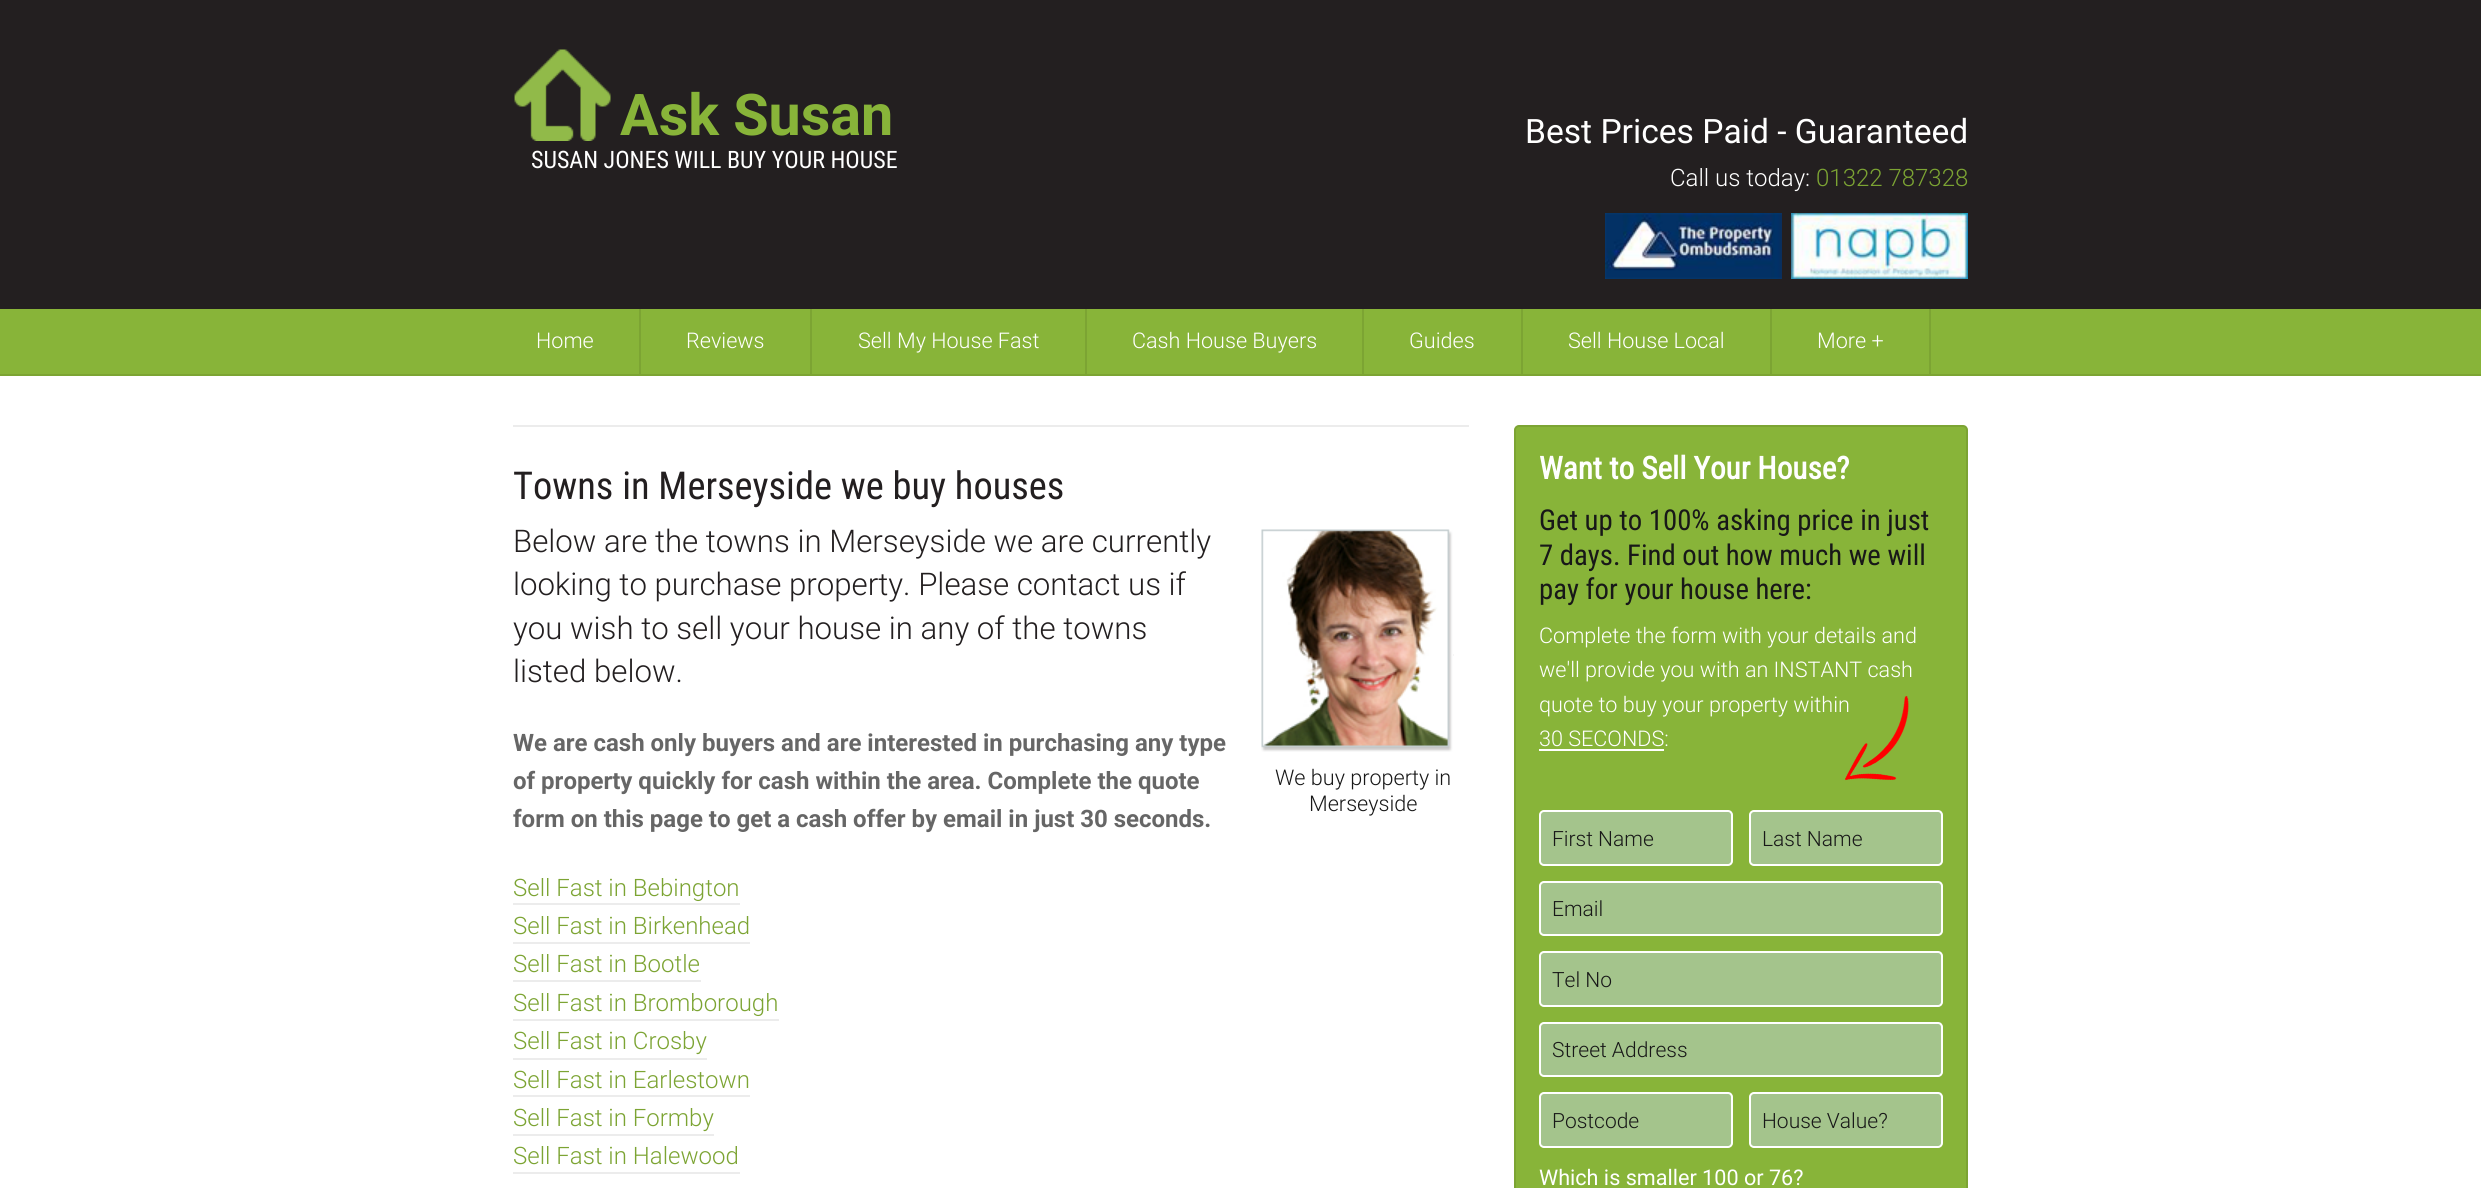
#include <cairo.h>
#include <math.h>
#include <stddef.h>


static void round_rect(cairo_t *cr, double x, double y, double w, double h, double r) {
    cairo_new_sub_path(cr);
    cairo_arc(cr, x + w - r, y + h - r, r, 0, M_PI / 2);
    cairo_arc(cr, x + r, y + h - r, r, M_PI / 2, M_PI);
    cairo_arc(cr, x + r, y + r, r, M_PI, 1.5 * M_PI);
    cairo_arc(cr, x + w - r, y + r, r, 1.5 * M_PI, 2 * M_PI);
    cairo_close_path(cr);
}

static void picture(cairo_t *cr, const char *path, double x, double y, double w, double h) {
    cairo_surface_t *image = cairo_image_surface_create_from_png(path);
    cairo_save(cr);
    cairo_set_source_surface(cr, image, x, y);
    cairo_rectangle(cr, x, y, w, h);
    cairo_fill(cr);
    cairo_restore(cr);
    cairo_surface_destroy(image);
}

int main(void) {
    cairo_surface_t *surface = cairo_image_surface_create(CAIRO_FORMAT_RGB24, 2481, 1188);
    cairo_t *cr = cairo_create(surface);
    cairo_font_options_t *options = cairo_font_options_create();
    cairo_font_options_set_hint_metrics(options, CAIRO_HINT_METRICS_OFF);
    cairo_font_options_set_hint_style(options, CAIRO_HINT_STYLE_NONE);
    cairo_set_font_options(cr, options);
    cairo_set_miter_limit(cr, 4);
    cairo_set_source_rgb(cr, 1, 1, 1);
    cairo_paint(cr);
    cairo_set_source_rgb(cr, 0.137, 0.122, 0.125);
    cairo_rectangle(cr, 0, 0, 2481, 309);
    cairo_fill(cr);
    picture(cr, "img1.png", 514, 49, 97, 92);
    cairo_select_font_face(cr, "Roboto", CAIRO_FONT_SLANT_NORMAL, CAIRO_FONT_WEIGHT_BOLD);
    cairo_set_font_size(cr, 57.5);
    cairo_set_source_rgb(cr, 0.533, 0.706, 0.224);
    cairo_move_to(cr, 620, 135);
    cairo_show_text(cr, "Ask Susan");
    cairo_select_font_face(cr, "Roboto Condensed", CAIRO_FONT_SLANT_NORMAL, CAIRO_FONT_WEIGHT_NORMAL);
    cairo_set_font_size(cr, 24);
    cairo_set_source_rgb(cr, 1, 1, 1);
    cairo_move_to(cr, 531, 168);
    cairo_show_text(cr, "SUSAN JONES WILL BUY YOUR HOUSE");
    cairo_select_font_face(cr, "Roboto", CAIRO_FONT_SLANT_NORMAL, CAIRO_FONT_WEIGHT_NORMAL);
    cairo_set_font_size(cr, 33.6);
    cairo_move_to(cr, 1525, 143);
    cairo_show_text(cr, "Best Prices Paid - Guaranteed");
    cairo_select_font_face(cr, "Roboto Light", CAIRO_FONT_SLANT_NORMAL, CAIRO_FONT_WEIGHT_NORMAL);
    cairo_set_font_size(cr, 24);
    cairo_move_to(cr, 1670, 186);
    cairo_show_text(cr, "Call us today:");
    cairo_set_source_rgb(cr, 0.486, 0.643, 0.2);
    cairo_move_to(cr, 1816, 186);
    cairo_show_text(cr, "01322 787328");
    picture(cr, "img2.png", 1605, 213, 177, 66);
    picture(cr, "img3.png", 1791, 213, 177, 66);
    cairo_set_source_rgb(cr, 0.533, 0.706, 0.224);
    cairo_rectangle(cr, 0, 309, 2481, 65);
    cairo_fill(cr);
    cairo_set_source_rgb(cr, 0.486, 0.643, 0.2);
    cairo_rectangle(cr, 0, 374, 2481, 2);
    cairo_fill(cr);
    cairo_rectangle(cr, 639, 309, 2, 65);
    cairo_fill(cr);
    cairo_set_font_size(cr, 21.6);
    cairo_set_source_rgb(cr, 1, 1, 1);
    cairo_move_to(cr, 536, 348);
    cairo_show_text(cr, "Home");
    cairo_set_source_rgb(cr, 0.486, 0.643, 0.2);
    cairo_rectangle(cr, 810, 309, 2, 65);
    cairo_fill(cr);
    cairo_set_source_rgb(cr, 1, 1, 1);
    cairo_move_to(cr, 686, 348);
    cairo_show_text(cr, "Reviews");
    cairo_set_source_rgb(cr, 0.486, 0.643, 0.2);
    cairo_rectangle(cr, 1085, 309, 2, 65);
    cairo_fill(cr);
    cairo_set_source_rgb(cr, 1, 1, 1);
    cairo_move_to(cr, 858, 348);
    cairo_show_text(cr, "Sell My House Fast");
    cairo_set_source_rgb(cr, 0.486, 0.643, 0.2);
    cairo_rectangle(cr, 1362, 309, 2, 65);
    cairo_fill(cr);
    cairo_set_source_rgb(cr, 1, 1, 1);
    cairo_move_to(cr, 1132, 348);
    cairo_show_text(cr, "Cash House Buyers");
    cairo_set_source_rgb(cr, 0.486, 0.643, 0.2);
    cairo_rectangle(cr, 1521, 309, 2, 65);
    cairo_fill(cr);
    cairo_set_source_rgb(cr, 1, 1, 1);
    cairo_move_to(cr, 1409, 348);
    cairo_show_text(cr, "Guides");
    cairo_set_source_rgb(cr, 0.486, 0.643, 0.2);
    cairo_rectangle(cr, 1770, 309, 2, 65);
    cairo_fill(cr);
    cairo_set_source_rgb(cr, 1, 1, 1);
    cairo_move_to(cr, 1568, 348);
    cairo_show_text(cr, "Sell House Local");
    cairo_set_source_rgb(cr, 0.486, 0.643, 0.2);
    cairo_rectangle(cr, 1929, 309, 2, 65);
    cairo_fill(cr);
    cairo_set_source_rgb(cr, 1, 1, 1);
    cairo_move_to(cr, 1817, 348);
    cairo_show_text(cr, "More +");
    cairo_set_source_rgb(cr, 0.925, 0.925, 0.925);
    cairo_rectangle(cr, 513, 425, 956, 2);
    cairo_fill(cr);
    cairo_select_font_face(cr, "Roboto Condensed", CAIRO_FONT_SLANT_NORMAL, CAIRO_FONT_WEIGHT_NORMAL);
    cairo_set_font_size(cr, 38.4);
    cairo_set_source_rgb(cr, 0.137, 0.122, 0.125);
    cairo_move_to(cr, 513, 499);
    cairo_show_text(cr, "Towns in Merseyside we buy houses");
    cairo_select_font_face(cr, "Roboto Light", CAIRO_FONT_SLANT_NORMAL, CAIRO_FONT_WEIGHT_NORMAL);
    cairo_set_font_size(cr, 31.2);
    cairo_move_to(cr, 513, 552);
    cairo_show_text(cr, "Below are the towns in Merseyside we are currently");
    cairo_move_to(cr, 513, 595);
    cairo_show_text(cr, "looking to purchase property. Please contact us if");
    cairo_move_to(cr, 513, 639);
    cairo_show_text(cr, "you wish to sell your house in any of the towns");
    cairo_move_to(cr, 513, 682);
    cairo_show_text(cr, "listed below.");
    cairo_select_font_face(cr, "Roboto", CAIRO_FONT_SLANT_NORMAL, CAIRO_FONT_WEIGHT_BOLD);
    cairo_set_font_size(cr, 24);
    cairo_set_source_rgb(cr, 0.4, 0.4, 0.4);
    cairo_move_to(cr, 513, 751);
    cairo_show_text(cr, "We are cash only buyers and are interested in purchasing any type");
    cairo_move_to(cr, 513, 789);
    cairo_show_text(cr, "of property quickly for cash within the area. Complete the quote");
    cairo_move_to(cr, 513, 827);
    cairo_show_text(cr, "form on this page to get a cash offer by email in just 30 seconds.");
    cairo_set_source_rgb(cr, 0.925, 0.925, 0.925);
    cairo_rectangle(cr, 1453, 654, 1, 2);
    cairo_fill(cr);
    picture(cr, "img4.png", 1259, 529, 195, 223);
    cairo_select_font_face(cr, "Roboto Light", CAIRO_FONT_SLANT_NORMAL, CAIRO_FONT_WEIGHT_NORMAL);
    cairo_set_font_size(cr, 21.6);
    cairo_set_source_rgb(cr, 0.094, 0.094, 0.094);
    cairo_move_to(cr, 1275, 785);
    cairo_show_text(cr, "We buy property in");
    cairo_move_to(cr, 1309, 811);
    cairo_show_text(cr, "Merseyside");
    cairo_set_font_size(cr, 24);
    cairo_set_source_rgb(cr, 0.486, 0.643, 0.2);
    cairo_move_to(cr, 513, 896);
    cairo_show_text(cr, "Sell Fast in Bebington");
    cairo_set_source_rgb(cr, 0.925, 0.925, 0.925);
    cairo_rectangle(cr, 513, 903, 227, 2);
    cairo_fill(cr);
    cairo_set_source_rgb(cr, 0.486, 0.643, 0.2);
    cairo_move_to(cr, 513, 934);
    cairo_show_text(cr, "Sell Fast in Birkenhead");
    cairo_set_source_rgb(cr, 0.925, 0.925, 0.925);
    cairo_rectangle(cr, 513, 942, 237, 2);
    cairo_fill(cr);
    cairo_set_source_rgb(cr, 0.486, 0.643, 0.2);
    cairo_move_to(cr, 513, 972);
    cairo_show_text(cr, "Sell Fast in Bootle");
    cairo_set_source_rgb(cr, 0.925, 0.925, 0.925);
    cairo_rectangle(cr, 513, 980, 188, 2);
    cairo_fill(cr);
    cairo_set_source_rgb(cr, 0.486, 0.643, 0.2);
    cairo_move_to(cr, 513, 1011);
    cairo_show_text(cr, "Sell Fast in Bromborough");
    cairo_set_source_rgb(cr, 0.925, 0.925, 0.925);
    cairo_rectangle(cr, 513, 1019, 266, 2);
    cairo_fill(cr);
    cairo_set_source_rgb(cr, 0.486, 0.643, 0.2);
    cairo_move_to(cr, 513, 1049);
    cairo_show_text(cr, "Sell Fast in Crosby");
    cairo_set_source_rgb(cr, 0.925, 0.925, 0.925);
    cairo_rectangle(cr, 513, 1058, 194, 2);
    cairo_fill(cr);
    cairo_set_source_rgb(cr, 0.486, 0.643, 0.2);
    cairo_move_to(cr, 513, 1088);
    cairo_show_text(cr, "Sell Fast in Earlestown");
    cairo_set_source_rgb(cr, 0.925, 0.925, 0.925);
    cairo_rectangle(cr, 513, 1095, 237, 2);
    cairo_fill(cr);
    cairo_set_source_rgb(cr, 0.486, 0.643, 0.2);
    cairo_move_to(cr, 513, 1126);
    cairo_show_text(cr, "Sell Fast in Formby");
    cairo_set_source_rgb(cr, 0.925, 0.925, 0.925);
    cairo_rectangle(cr, 513, 1134, 201, 2);
    cairo_fill(cr);
    cairo_set_source_rgb(cr, 0.486, 0.643, 0.2);
    cairo_move_to(cr, 513, 1164);
    cairo_show_text(cr, "Sell Fast in Halewood");
    cairo_set_source_rgb(cr, 0.925, 0.925, 0.925);
    cairo_rectangle(cr, 513, 1172, 227, 2);
    cairo_fill(cr);
    cairo_set_source_rgb(cr, 0.533, 0.706, 0.224);
    round_rect(cr, 1515, 426, 452, 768, 4);
    cairo_fill_preserve(cr);
    cairo_set_source_rgb(cr, 0.486, 0.643, 0.2);
    cairo_stroke(cr);
    cairo_select_font_face(cr, "Roboto Condensed", CAIRO_FONT_SLANT_NORMAL, CAIRO_FONT_WEIGHT_BOLD);
    cairo_set_font_size(cr, 31.2);
    cairo_set_source_rgb(cr, 1, 1, 1);
    cairo_move_to(cr, 1539, 479);
    cairo_show_text(cr, "Want to Sell Your House?");
    cairo_select_font_face(cr, "Roboto Condensed", CAIRO_FONT_SLANT_NORMAL, CAIRO_FONT_WEIGHT_NORMAL);
    cairo_set_font_size(cr, 28.75);
    cairo_set_source_rgb(cr, 0.094, 0.094, 0.094);
    cairo_move_to(cr, 1539, 530);
    cairo_show_text(cr, "Get up to 100% asking price in just");
    cairo_move_to(cr, 1539, 565);
    cairo_show_text(cr, "7 days. Find out how much we will");
    cairo_move_to(cr, 1539, 599);
    cairo_show_text(cr, "pay for your house here:");
    cairo_select_font_face(cr, "Roboto Light", CAIRO_FONT_SLANT_NORMAL, CAIRO_FONT_WEIGHT_NORMAL);
    cairo_set_font_size(cr, 21.6);
    cairo_set_source_rgb(cr, 1, 1, 1);
    cairo_move_to(cr, 1539, 643);
    cairo_show_text(cr, "Complete the form with your details and");
    cairo_move_to(cr, 1539, 677);
    cairo_show_text(cr, "we'll provide you with an INSTANT cash");
    cairo_move_to(cr, 1539, 712);
    cairo_show_text(cr, "quote to buy your property within");
    cairo_move_to(cr, 1539, 746);
    cairo_show_text(cr, "30 SECONDS:");
    cairo_rectangle(cr, 1539, 749, 125, 2);
    cairo_fill(cr);
    picture(cr, "img5.png", 1845, 696, 64, 85);
    cairo_set_source_rgb(cr, 0.643, 0.769, 0.549);
    round_rect(cr, 1540, 811, 192, 54, 4);
    cairo_fill_preserve(cr);
    cairo_set_source_rgb(cr, 1, 1, 1);
    cairo_stroke(cr);
    cairo_set_font_size(cr, 21);
    cairo_set_source_rgb(cr, 0.094, 0.094, 0.094);
    cairo_move_to(cr, 1552, 846);
    cairo_show_text(cr, "First Name");
    cairo_set_source_rgb(cr, 0.643, 0.769, 0.549);
    round_rect(cr, 1750, 811, 192, 54, 4);
    cairo_fill_preserve(cr);
    cairo_set_source_rgb(cr, 1, 1, 1);
    cairo_stroke(cr);
    cairo_set_source_rgb(cr, 0.094, 0.094, 0.094);
    cairo_move_to(cr, 1762, 846);
    cairo_show_text(cr, "Last Name");
    cairo_set_source_rgb(cr, 0.643, 0.769, 0.549);
    round_rect(cr, 1540, 882, 402, 53, 4);
    cairo_fill_preserve(cr);
    cairo_set_source_rgb(cr, 1, 1, 1);
    cairo_stroke(cr);
    cairo_set_source_rgb(cr, 0.094, 0.094, 0.094);
    cairo_move_to(cr, 1552, 916);
    cairo_show_text(cr, "Email");
    cairo_set_source_rgb(cr, 0.643, 0.769, 0.549);
    round_rect(cr, 1540, 952, 402, 54, 4);
    cairo_fill_preserve(cr);
    cairo_set_source_rgb(cr, 1, 1, 1);
    cairo_stroke(cr);
    cairo_set_source_rgb(cr, 0.094, 0.094, 0.094);
    cairo_move_to(cr, 1552, 987);
    cairo_show_text(cr, "Tel No");
    cairo_set_source_rgb(cr, 0.643, 0.769, 0.549);
    round_rect(cr, 1540, 1023, 402, 53, 4);
    cairo_fill_preserve(cr);
    cairo_set_source_rgb(cr, 1, 1, 1);
    cairo_stroke(cr);
    cairo_set_source_rgb(cr, 0.094, 0.094, 0.094);
    cairo_move_to(cr, 1552, 1057);
    cairo_show_text(cr, "Street Address");
    cairo_set_source_rgb(cr, 0.643, 0.769, 0.549);
    round_rect(cr, 1540, 1093, 192, 54, 4);
    cairo_fill_preserve(cr);
    cairo_set_source_rgb(cr, 1, 1, 1);
    cairo_stroke(cr);
    cairo_set_source_rgb(cr, 0.094, 0.094, 0.094);
    cairo_move_to(cr, 1552, 1128);
    cairo_show_text(cr, "Postcode");
    cairo_set_source_rgb(cr, 0.643, 0.769, 0.549);
    round_rect(cr, 1750, 1093, 192, 54, 4);
    cairo_fill_preserve(cr);
    cairo_set_source_rgb(cr, 1, 1, 1);
    cairo_stroke(cr);
    cairo_set_source_rgb(cr, 0.094, 0.094, 0.094);
    cairo_move_to(cr, 1762, 1128);
    cairo_show_text(cr, "House Value?");
    cairo_select_font_face(cr, "Roboto", CAIRO_FONT_SLANT_NORMAL, CAIRO_FONT_WEIGHT_NORMAL);
    cairo_set_font_size(cr, 21.6);
    cairo_set_source_rgb(cr, 1, 1, 1);
    cairo_move_to(cr, 1539, 1185);
    cairo_show_text(cr, "Which is smaller 100 or 76?");
    cairo_surface_write_to_png(surface, "page.png");
    cairo_font_options_destroy(options);
    cairo_destroy(cr);
    cairo_surface_destroy(surface);
    return 0;
}
